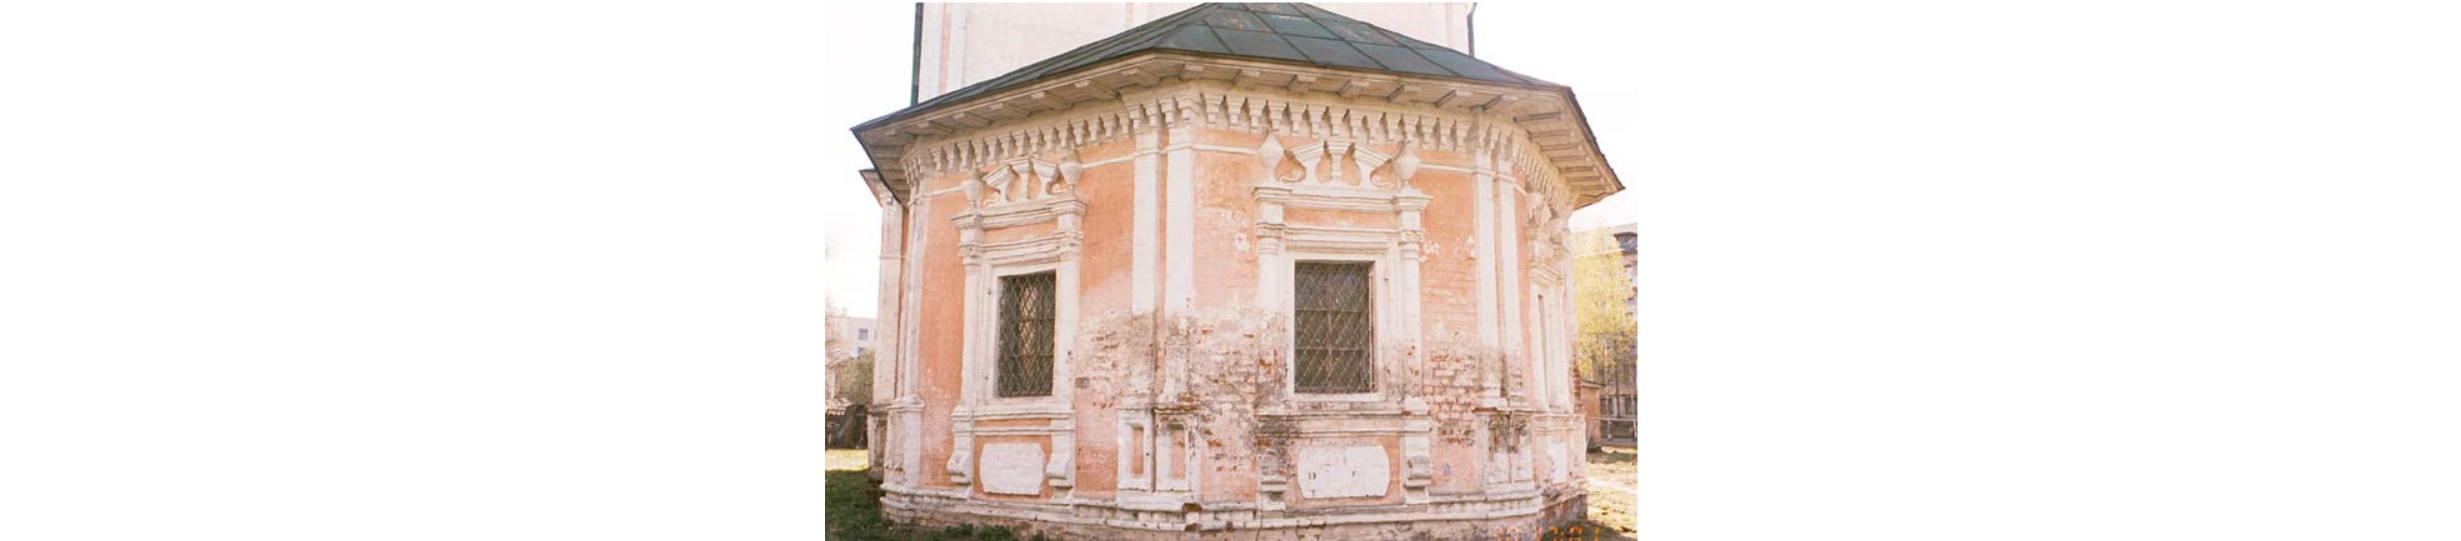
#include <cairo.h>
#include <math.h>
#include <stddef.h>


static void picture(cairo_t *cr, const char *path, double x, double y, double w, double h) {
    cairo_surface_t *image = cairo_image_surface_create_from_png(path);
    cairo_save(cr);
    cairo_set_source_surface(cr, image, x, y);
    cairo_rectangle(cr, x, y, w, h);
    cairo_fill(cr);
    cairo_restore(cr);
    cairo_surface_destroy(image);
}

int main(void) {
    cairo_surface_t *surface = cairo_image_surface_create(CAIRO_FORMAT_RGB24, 2461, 541);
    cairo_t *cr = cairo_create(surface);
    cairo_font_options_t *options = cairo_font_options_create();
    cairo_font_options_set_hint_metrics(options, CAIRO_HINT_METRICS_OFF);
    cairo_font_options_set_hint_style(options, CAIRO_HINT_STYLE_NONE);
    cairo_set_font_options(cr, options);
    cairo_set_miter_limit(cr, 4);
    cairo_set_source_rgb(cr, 1, 1, 1);
    cairo_paint(cr);
    picture(cr, "img1.png", 825, 2, 813, 539);
    cairo_surface_write_to_png(surface, "page.png");
    cairo_font_options_destroy(options);
    cairo_destroy(cr);
    cairo_surface_destroy(surface);
    return 0;
}
